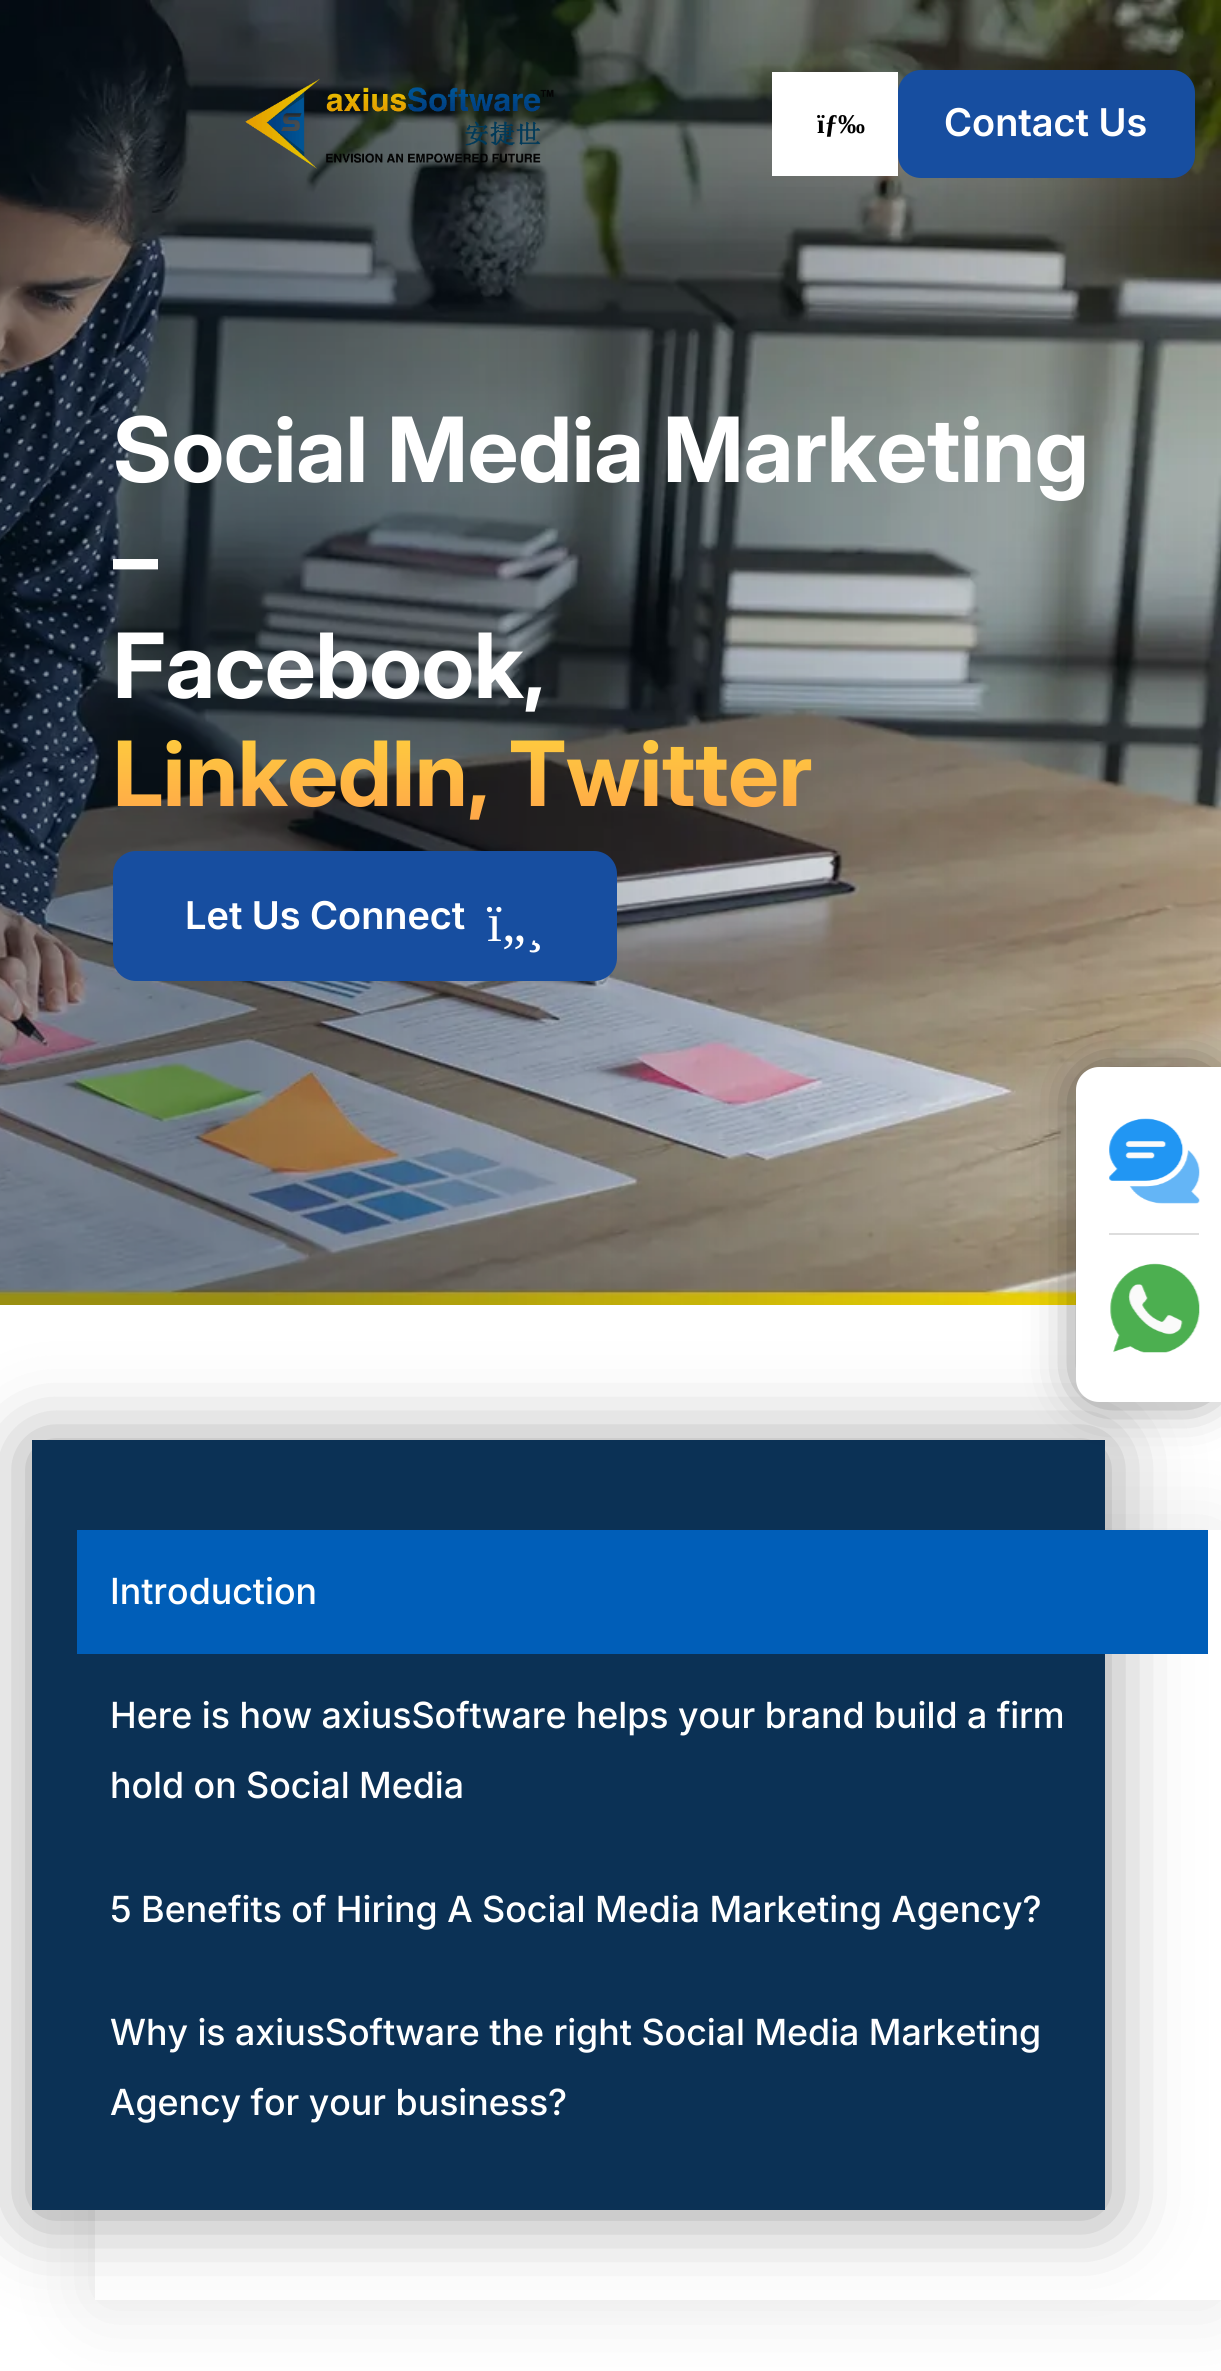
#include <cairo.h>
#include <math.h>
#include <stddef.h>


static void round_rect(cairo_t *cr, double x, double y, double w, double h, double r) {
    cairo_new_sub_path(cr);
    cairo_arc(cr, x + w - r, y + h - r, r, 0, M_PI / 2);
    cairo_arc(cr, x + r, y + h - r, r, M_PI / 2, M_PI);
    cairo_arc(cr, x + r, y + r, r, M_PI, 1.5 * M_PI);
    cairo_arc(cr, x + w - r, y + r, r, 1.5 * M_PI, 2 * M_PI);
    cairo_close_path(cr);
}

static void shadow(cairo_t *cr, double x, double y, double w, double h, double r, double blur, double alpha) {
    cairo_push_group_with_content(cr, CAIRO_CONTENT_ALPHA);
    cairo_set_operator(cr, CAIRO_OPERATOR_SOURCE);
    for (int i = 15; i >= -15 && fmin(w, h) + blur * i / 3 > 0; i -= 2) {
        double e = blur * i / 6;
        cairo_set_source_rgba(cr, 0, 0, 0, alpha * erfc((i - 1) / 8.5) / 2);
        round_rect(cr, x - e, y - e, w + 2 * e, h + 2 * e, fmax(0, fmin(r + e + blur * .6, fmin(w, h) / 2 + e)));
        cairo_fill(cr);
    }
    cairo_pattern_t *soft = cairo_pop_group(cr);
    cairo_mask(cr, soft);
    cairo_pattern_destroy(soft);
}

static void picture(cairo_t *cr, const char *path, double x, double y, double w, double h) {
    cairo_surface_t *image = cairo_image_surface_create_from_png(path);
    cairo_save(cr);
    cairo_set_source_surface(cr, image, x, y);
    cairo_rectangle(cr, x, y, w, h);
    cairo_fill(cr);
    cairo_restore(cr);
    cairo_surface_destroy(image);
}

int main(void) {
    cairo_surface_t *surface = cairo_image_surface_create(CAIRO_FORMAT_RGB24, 1221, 2371);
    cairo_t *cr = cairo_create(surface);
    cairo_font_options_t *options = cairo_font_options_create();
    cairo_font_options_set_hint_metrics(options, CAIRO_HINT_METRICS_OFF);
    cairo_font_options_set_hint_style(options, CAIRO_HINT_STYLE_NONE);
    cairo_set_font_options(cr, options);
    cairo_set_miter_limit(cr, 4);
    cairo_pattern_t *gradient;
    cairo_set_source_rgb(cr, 1, 1, 1);
    cairo_paint(cr);
    picture(cr, "img2.png", 0, 0, 1221, 1305);
    picture(cr, "img1.png", 245, 78, 309, 91);
    cairo_set_source_rgb(cr, 1, 1, 1);
    cairo_rectangle(cr, 772, 72, 126, 104);
    cairo_fill(cr);
    cairo_select_font_face(cr, "Liberation Serif", CAIRO_FONT_SLANT_NORMAL, CAIRO_FONT_WEIGHT_BOLD);
    cairo_set_font_size(cr, 27);
    cairo_set_source_rgb(cr, 0, 0, 0);
    cairo_move_to(cr, 817, 133);
    cairo_show_text(cr, "ïƒ‰");
    cairo_set_source_rgb(cr, 0.09, 0.306, 0.627);
    round_rect(cr, 898, 70, 297, 108, 23);
    cairo_fill(cr);
    cairo_select_font_face(cr, "Inter SemiBold", CAIRO_FONT_SLANT_NORMAL, CAIRO_FONT_WEIGHT_NORMAL);
    cairo_set_font_size(cr, 38.25);
    cairo_set_source_rgb(cr, 1, 1, 1);
    cairo_move_to(cr, 944, 136);
    cairo_show_text(cr, "Contact Us");
    cairo_select_font_face(cr, "Inter", CAIRO_FONT_SLANT_NORMAL, CAIRO_FONT_WEIGHT_BOLD);
    cairo_set_font_size(cr, 90);
    cairo_move_to(cr, 113, 482);
    cairo_show_text(cr, "Social Media Marketing");
    cairo_move_to(cr, 113, 590);
    cairo_show_text(cr, "–");
    cairo_move_to(cr, 113, 698);
    cairo_show_text(cr, "Facebook,");
    gradient = cairo_pattern_create_linear(462, 718, 462, 828);
    cairo_pattern_add_color_stop_rgba(gradient, 0, 0.996, 0.824, 0.235, 1);
    cairo_pattern_add_color_stop_rgba(gradient, 1, 1, 0.643, 0.29, 1);
    cairo_set_source(cr, gradient);
    cairo_pattern_destroy(gradient);
    cairo_move_to(cr, 113, 806);
    cairo_show_text(cr, "LinkedIn, Twitter");
    cairo_set_source_rgb(cr, 0.09, 0.306, 0.627);
    round_rect(cr, 113, 851, 504, 130, 23);
    cairo_fill(cr);
    cairo_select_font_face(cr, "Inter SemiBold", CAIRO_FONT_SLANT_NORMAL, CAIRO_FONT_WEIGHT_NORMAL);
    cairo_set_font_size(cr, 38.25);
    cairo_set_source_rgb(cr, 1, 1, 1);
    cairo_move_to(cr, 185, 929);
    cairo_show_text(cr, "Let Us Connect");
    cairo_select_font_face(cr, "Liberation Serif", CAIRO_FONT_SLANT_NORMAL, CAIRO_FONT_WEIGHT_NORMAL);
    cairo_set_font_size(cr, 54);
    cairo_move_to(cr, 487, 941);
    cairo_show_text(cr, "ï„¸");
    cairo_set_source_rgb(cr, 0, 0, 0);
    shadow(cr, 95, 1535, 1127, 769, 0, 41.5, 0.1);
    cairo_set_source_rgb(cr, 1, 1, 1);
    cairo_rectangle(cr, 95, 1530, 1126, 770);
    cairo_fill(cr);
    cairo_set_source_rgb(cr, 0, 0, 0);
    shadow(cr, 32, 1445, 1073, 769, 0, 41.5, 0.4);
    cairo_set_source_rgb(cr, 0.043, 0.192, 0.333);
    cairo_rectangle(cr, 32, 1440, 1073, 770);
    cairo_fill(cr);
    cairo_set_source_rgb(cr, 0, 0, 0);
    shadow(cr, 1089, 1080, 119, 308, 9, 27, 0.75);
    cairo_set_source_rgb(cr, 1, 1, 1);
    cairo_new_path(cr);
    cairo_move_to(cr, 1099, 1067);
    cairo_line_to(cr, 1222, 1067);
    cairo_line_to(cr, 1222, 1402);
    cairo_line_to(cr, 1099, 1402);
    cairo_curve_to(cr, 1086.5, 1402, 1076, 1391.5, 1076, 1379);
    cairo_line_to(cr, 1076, 1090);
    cairo_curve_to(cr, 1076, 1077.5, 1086.5, 1067, 1099, 1067);
    cairo_close_path(cr);
    cairo_fill(cr);
    cairo_set_source_rgb(cr, 0.867, 0.867, 0.867);
    cairo_rectangle(cr, 1109, 1233, 90, 2);
    cairo_fill(cr);
    picture(cr, "img3.png", 1109, 1118, 91, 86);
    picture(cr, "img4.png", 1110, 1263, 90, 90);
    cairo_set_source_rgb(cr, 0, 0.369, 0.722);
    cairo_rectangle(cr, 77, 1530, 1131, 124);
    cairo_fill(cr);
    cairo_select_font_face(cr, "Inter Medium", CAIRO_FONT_SLANT_NORMAL, CAIRO_FONT_WEIGHT_NORMAL);
    cairo_set_font_size(cr, 36);
    cairo_set_source_rgb(cr, 1, 1, 1);
    cairo_move_to(cr, 110, 1604);
    cairo_show_text(cr, "Introduction");
    cairo_move_to(cr, 110, 1728);
    cairo_show_text(cr, "Here is how axiusSoftware helps your brand build a firm");
    cairo_move_to(cr, 110, 1798);
    cairo_show_text(cr, "hold on Social Media");
    cairo_move_to(cr, 110, 1922);
    cairo_show_text(cr, "5 Benefits of Hiring A Social Media Marketing Agency?");
    cairo_move_to(cr, 110, 2045);
    cairo_show_text(cr, "Why is axiusSoftware the right Social Media Marketing");
    cairo_move_to(cr, 110, 2115);
    cairo_show_text(cr, "Agency for your business?");
    cairo_surface_write_to_png(surface, "page.png");
    cairo_font_options_destroy(options);
    cairo_destroy(cr);
    cairo_surface_destroy(surface);
    return 0;
}
